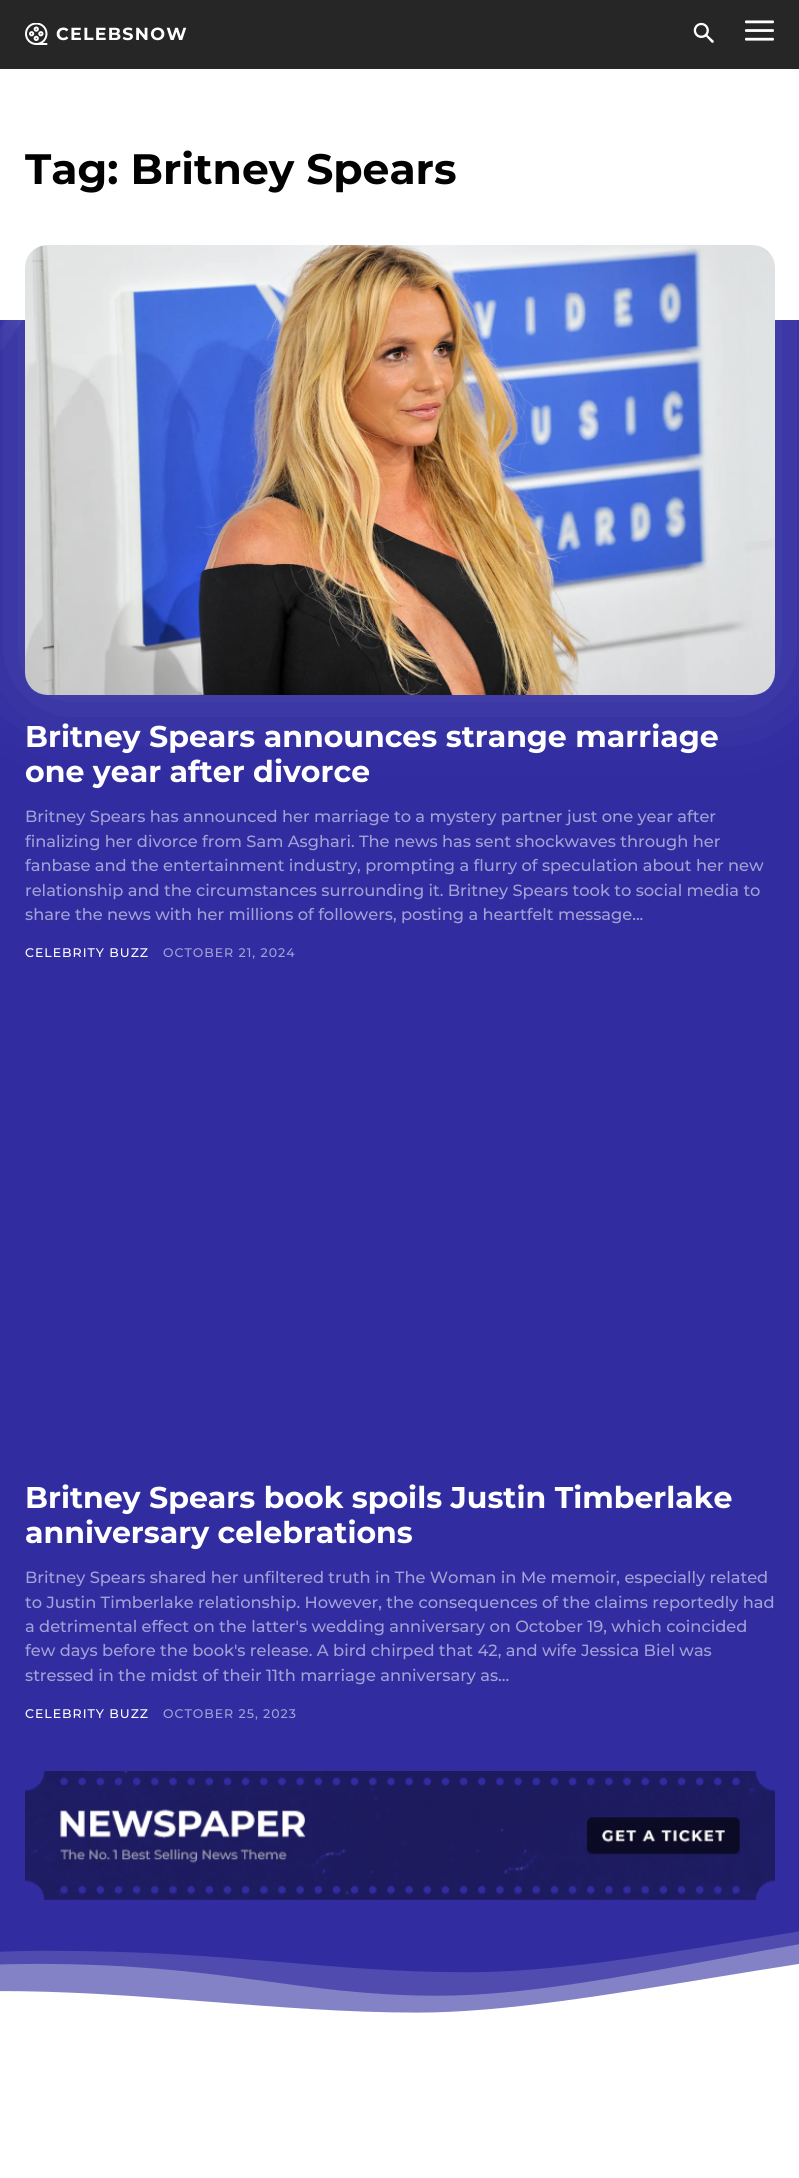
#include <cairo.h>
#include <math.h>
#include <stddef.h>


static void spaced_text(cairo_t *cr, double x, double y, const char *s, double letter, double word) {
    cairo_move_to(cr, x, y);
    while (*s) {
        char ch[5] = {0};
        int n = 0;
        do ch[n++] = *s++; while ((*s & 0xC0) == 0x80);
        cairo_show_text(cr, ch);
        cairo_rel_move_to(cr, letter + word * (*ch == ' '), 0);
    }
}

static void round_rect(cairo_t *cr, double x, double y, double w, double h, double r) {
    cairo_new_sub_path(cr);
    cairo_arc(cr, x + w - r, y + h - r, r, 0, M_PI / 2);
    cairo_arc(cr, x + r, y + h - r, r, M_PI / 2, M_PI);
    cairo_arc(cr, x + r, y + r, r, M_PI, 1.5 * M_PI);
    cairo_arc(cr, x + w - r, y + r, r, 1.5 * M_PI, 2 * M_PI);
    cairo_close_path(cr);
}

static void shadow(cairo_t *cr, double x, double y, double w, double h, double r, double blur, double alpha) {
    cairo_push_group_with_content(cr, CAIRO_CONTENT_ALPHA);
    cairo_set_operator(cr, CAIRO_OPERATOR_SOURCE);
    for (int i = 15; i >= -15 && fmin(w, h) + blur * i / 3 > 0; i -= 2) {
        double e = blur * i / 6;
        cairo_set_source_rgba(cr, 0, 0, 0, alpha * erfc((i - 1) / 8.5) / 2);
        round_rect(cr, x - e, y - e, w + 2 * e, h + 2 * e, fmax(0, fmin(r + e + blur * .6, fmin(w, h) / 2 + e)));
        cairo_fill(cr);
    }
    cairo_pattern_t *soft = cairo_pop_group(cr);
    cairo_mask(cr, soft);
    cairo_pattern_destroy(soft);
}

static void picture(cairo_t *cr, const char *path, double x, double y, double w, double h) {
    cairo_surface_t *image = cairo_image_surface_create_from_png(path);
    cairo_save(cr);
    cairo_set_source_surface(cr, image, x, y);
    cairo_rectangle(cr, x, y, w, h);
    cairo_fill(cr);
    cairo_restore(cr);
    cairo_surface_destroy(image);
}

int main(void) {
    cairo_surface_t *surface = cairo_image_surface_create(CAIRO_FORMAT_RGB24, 799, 2178);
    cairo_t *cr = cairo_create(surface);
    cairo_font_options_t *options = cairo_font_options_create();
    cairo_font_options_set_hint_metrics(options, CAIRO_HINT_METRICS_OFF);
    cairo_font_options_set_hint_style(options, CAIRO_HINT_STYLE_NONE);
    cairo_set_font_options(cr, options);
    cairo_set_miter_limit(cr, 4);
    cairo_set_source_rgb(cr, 1, 1, 1);
    cairo_paint(cr);
    cairo_set_source_rgb(cr, 0.149, 0.149, 0.149);
    cairo_rectangle(cr, 0, 0, 799, 69);
    cairo_fill(cr);
    picture(cr, "img1.png", 25, 23, 23, 22);
    cairo_select_font_face(cr, "Montserrat", CAIRO_FONT_SLANT_NORMAL, CAIRO_FONT_WEIGHT_BOLD);
    cairo_set_font_size(cr, 17.5);
    cairo_set_source_rgb(cr, 1, 1, 1);
    spaced_text(cr, 56, 40, "CELEBSNOW", 1.25, 0);
    picture(cr, "img2.png", 693, 22, 21, 21);
    picture(cr, "img3.png", 745, 20, 29, 21);
    cairo_set_font_size(cr, 42.5);
    cairo_set_source_rgb(cr, 0, 0, 0);
    cairo_move_to(cr, 25, 184);
    cairo_show_text(cr, "Tag: Britney Spears");
    cairo_set_source_rgb(cr, 0.192, 0.176, 0.631);
    cairo_rectangle(cr, 0, 320, 799, 1693);
    cairo_fill(cr);
    picture(cr, "img4.png", 0, 320, 777, 30);
    cairo_set_source_rgb(cr, 1, 1, 1);
    shadow(cr, 25, 245, 750, 450, 23, 44, 0.15);
    picture(cr, "img5.png", 25, 245, 750, 450);
    cairo_set_font_size(cr, 30);
    cairo_set_source_rgb(cr, 1, 1, 1);
    cairo_move_to(cr, 25, 747);
    cairo_show_text(cr, "Britney Spears announces strange marriage");
    cairo_move_to(cr, 25, 782);
    cairo_show_text(cr, "one year after divorce");
    cairo_select_font_face(cr, "Montserrat Medium", CAIRO_FONT_SLANT_NORMAL, CAIRO_FONT_WEIGHT_NORMAL);
    cairo_set_font_size(cr, 16.25);
    cairo_set_source_rgb(cr, 0.635, 0.631, 0.835);
    cairo_move_to(cr, 25, 822);
    cairo_show_text(cr, "Britney Spears has announced her marriage to a mystery partner just one year after");
    cairo_move_to(cr, 25, 847);
    cairo_show_text(cr, "finalizing her divorce from Sam Asghari. The news has sent shockwaves through her");
    cairo_move_to(cr, 25, 871);
    cairo_show_text(cr, "fanbase and the entertainment industry, prompting a flurry of speculation about her new");
    cairo_move_to(cr, 25, 896);
    cairo_show_text(cr, "relationship and the circumstances surrounding it. Britney Spears took to social media to");
    cairo_move_to(cr, 25, 920);
    cairo_show_text(cr, "share the news with her millions of followers, posting a heartfelt message...");
    cairo_set_font_size(cr, 12.5);
    cairo_set_source_rgb(cr, 1, 1, 1);
    spaced_text(cr, 25, 957, "CELEBRITY BUZZ", 1, 0);
    cairo_set_source_rgb(cr, 0.635, 0.631, 0.835);
    spaced_text(cr, 163, 957, "OCTOBER 21, 2024", 1, 0);
    cairo_select_font_face(cr, "Montserrat", CAIRO_FONT_SLANT_NORMAL, CAIRO_FONT_WEIGHT_BOLD);
    cairo_set_font_size(cr, 30);
    cairo_set_source_rgb(cr, 1, 1, 1);
    cairo_move_to(cr, 25, 1508);
    cairo_show_text(cr, "Britney Spears book spoils Justin Timberlake");
    cairo_move_to(cr, 25, 1543);
    cairo_show_text(cr, "anniversary celebrations");
    cairo_select_font_face(cr, "Montserrat Medium", CAIRO_FONT_SLANT_NORMAL, CAIRO_FONT_WEIGHT_NORMAL);
    cairo_set_font_size(cr, 16.25);
    cairo_set_source_rgb(cr, 0.635, 0.631, 0.835);
    cairo_move_to(cr, 25, 1583);
    cairo_show_text(cr, "Britney Spears shared her unfiltered truth in The Woman in Me memoir, especially related");
    cairo_move_to(cr, 25, 1608);
    cairo_show_text(cr, "to Justin Timberlake relationship. However, the consequences of the claims reportedly had");
    cairo_move_to(cr, 25, 1632);
    cairo_show_text(cr, "a detrimental effect on the latter's wedding anniversary on October 19, which coincided");
    cairo_move_to(cr, 25, 1656);
    cairo_show_text(cr, "few days before the book's release. A bird chirped that 42, and wife Jessica Biel was");
    cairo_move_to(cr, 25, 1681);
    cairo_show_text(cr, "stressed in the midst of their 11th marriage anniversary as...");
    cairo_set_font_size(cr, 12.5);
    cairo_set_source_rgb(cr, 1, 1, 1);
    spaced_text(cr, 25, 1718, "CELEBRITY BUZZ", 1, 0);
    cairo_set_source_rgb(cr, 0.635, 0.631, 0.835);
    spaced_text(cr, 163, 1718, "OCTOBER 25, 2023", 1, 0);
    picture(cr, "img6.png", 25, 1771, 750, 129);
    picture(cr, "img7.png", 0, 1931, 799, 89);
    cairo_surface_write_to_png(surface, "page.png");
    cairo_font_options_destroy(options);
    cairo_destroy(cr);
    cairo_surface_destroy(surface);
    return 0;
}
